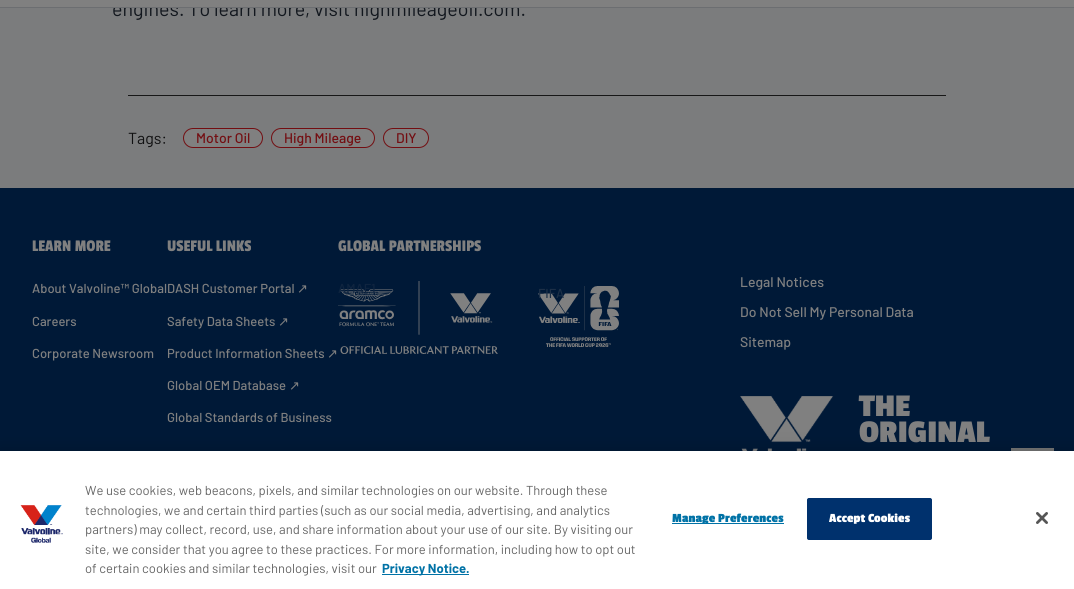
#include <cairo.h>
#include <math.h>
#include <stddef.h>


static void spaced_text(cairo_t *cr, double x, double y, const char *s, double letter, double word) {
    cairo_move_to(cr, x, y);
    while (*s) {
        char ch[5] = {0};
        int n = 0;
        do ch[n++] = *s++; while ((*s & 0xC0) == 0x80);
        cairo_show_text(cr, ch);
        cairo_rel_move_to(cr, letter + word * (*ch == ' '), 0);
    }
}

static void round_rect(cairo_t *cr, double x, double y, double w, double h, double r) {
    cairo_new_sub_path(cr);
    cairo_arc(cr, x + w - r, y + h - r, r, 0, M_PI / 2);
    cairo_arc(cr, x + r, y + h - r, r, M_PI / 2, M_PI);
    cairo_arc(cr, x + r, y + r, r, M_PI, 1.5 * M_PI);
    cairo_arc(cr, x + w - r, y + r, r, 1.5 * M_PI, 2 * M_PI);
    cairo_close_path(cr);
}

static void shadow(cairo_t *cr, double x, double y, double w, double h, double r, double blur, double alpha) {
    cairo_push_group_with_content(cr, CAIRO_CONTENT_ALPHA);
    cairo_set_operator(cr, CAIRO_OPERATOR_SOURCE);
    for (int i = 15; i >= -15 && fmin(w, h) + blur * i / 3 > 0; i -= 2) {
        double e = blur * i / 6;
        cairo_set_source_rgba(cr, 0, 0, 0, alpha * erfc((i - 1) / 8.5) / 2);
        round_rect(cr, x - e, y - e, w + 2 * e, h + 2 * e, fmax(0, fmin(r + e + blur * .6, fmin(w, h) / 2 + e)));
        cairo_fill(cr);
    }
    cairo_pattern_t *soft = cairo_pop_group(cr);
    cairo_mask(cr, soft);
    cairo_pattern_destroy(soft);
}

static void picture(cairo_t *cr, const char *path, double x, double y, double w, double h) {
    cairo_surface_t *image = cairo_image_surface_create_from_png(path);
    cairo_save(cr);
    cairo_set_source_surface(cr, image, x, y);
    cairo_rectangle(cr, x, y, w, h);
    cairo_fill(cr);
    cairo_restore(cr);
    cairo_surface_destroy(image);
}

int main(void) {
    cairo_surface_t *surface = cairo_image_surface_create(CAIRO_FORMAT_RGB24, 1074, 589);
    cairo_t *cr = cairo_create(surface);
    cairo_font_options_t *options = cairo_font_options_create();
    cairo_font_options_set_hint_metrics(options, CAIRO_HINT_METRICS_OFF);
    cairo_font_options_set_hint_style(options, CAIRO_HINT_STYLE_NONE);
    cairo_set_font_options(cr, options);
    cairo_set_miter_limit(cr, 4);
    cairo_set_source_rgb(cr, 0.482, 0.486, 0.49);
    cairo_paint(cr);
    cairo_select_font_face(cr, "Barlow", CAIRO_FONT_SLANT_NORMAL, CAIRO_FONT_WEIGHT_NORMAL);
    cairo_set_font_size(cr, 19.6);
    cairo_set_source_rgb(cr, 0.071, 0.09, 0.118);
    cairo_move_to(cr, 112, 16);
    cairo_show_text(cr, "engines. To learn more, visit highmileageoil.com.");
    cairo_set_source_rgb(cr, 0.502, 0.502, 0.502);
    cairo_rectangle(cr, 0, 0, 1074, 7);
    cairo_fill(cr);
    cairo_set_source_rgb(cr, 0.424, 0.431, 0.443);
    cairo_rectangle(cr, 0, 7, 1074, 1);
    cairo_fill(cr);
    cairo_set_source_rgb(cr, 0.09, 0.09, 0.09);
    cairo_rectangle(cr, 128, 95, 818, 1);
    cairo_fill(cr);
    cairo_set_font_size(cr, 16);
    cairo_set_source_rgb(cr, 0.063, 0.063, 0.067);
    cairo_move_to(cr, 128, 144);
    cairo_show_text(cr, "Tags:");
    cairo_set_source_rgb(cr, 0.502, 0.502, 0.502);
    round_rect(cr, 183.5, 128.5, 79, 19, 9.5);
    cairo_fill_preserve(cr);
    cairo_set_source_rgb(cr, 0.451, 0.055, 0.071);
    cairo_set_line_width(cr, 1);
    cairo_stroke(cr);
    cairo_select_font_face(cr, "Barlow Medium", CAIRO_FONT_SLANT_NORMAL, CAIRO_FONT_WEIGHT_NORMAL);
    cairo_set_font_size(cr, 14);
    cairo_move_to(cr, 196, 143);
    cairo_show_text(cr, "Motor Oil");
    cairo_set_source_rgb(cr, 0.502, 0.502, 0.502);
    round_rect(cr, 271.5, 128.5, 103, 19, 9.5);
    cairo_fill_preserve(cr);
    cairo_set_source_rgb(cr, 0.451, 0.055, 0.071);
    cairo_stroke(cr);
    cairo_move_to(cr, 284, 143);
    cairo_show_text(cr, "High Mileage");
    cairo_set_source_rgb(cr, 0.502, 0.502, 0.502);
    round_rect(cr, 383.5, 128.5, 45, 19, 9.5);
    cairo_fill_preserve(cr);
    cairo_set_source_rgb(cr, 0.451, 0.055, 0.071);
    cairo_stroke(cr);
    cairo_move_to(cr, 396, 143);
    cairo_show_text(cr, "DIY");
    cairo_set_source_rgb(cr, 0, 0.098, 0.216);
    cairo_rectangle(cr, 0, 188, 1074, 263);
    cairo_fill(cr);
    cairo_select_font_face(cr, "Passion One", CAIRO_FONT_SLANT_NORMAL, CAIRO_FONT_WEIGHT_NORMAL);
    cairo_set_font_size(cr, 17);
    cairo_set_source_rgb(cr, 0.502, 0.502, 0.502);
    cairo_move_to(cr, 32, 251);
    cairo_show_text(cr, "LEARN MORE");
    cairo_select_font_face(cr, "Barlow Medium", CAIRO_FONT_SLANT_NORMAL, CAIRO_FONT_WEIGHT_NORMAL);
    cairo_set_font_size(cr, 13);
    cairo_move_to(cr, 32, 293);
    cairo_show_text(cr, "About Valvoline™ GlobalDASH Customer Portal");
    cairo_move_to(cr, 32, 326);
    cairo_show_text(cr, "Careers");
    cairo_move_to(cr, 32, 358);
    cairo_show_text(cr, "Corporate Newsroom");
    cairo_select_font_face(cr, "Passion One", CAIRO_FONT_SLANT_NORMAL, CAIRO_FONT_WEIGHT_NORMAL);
    cairo_set_font_size(cr, 17);
    cairo_move_to(cr, 167, 251);
    cairo_show_text(cr, "USEFUL LINKS");
    cairo_select_font_face(cr, "DejaVu Sans", CAIRO_FONT_SLANT_NORMAL, CAIRO_FONT_WEIGHT_NORMAL);
    cairo_set_font_size(cr, 13);
    cairo_move_to(cr, 297, 293);
    cairo_show_text(cr, "↗");
    cairo_select_font_face(cr, "Barlow Medium", CAIRO_FONT_SLANT_NORMAL, CAIRO_FONT_WEIGHT_NORMAL);
    cairo_move_to(cr, 167, 326);
    cairo_show_text(cr, "Safety Data Sheets");
    cairo_select_font_face(cr, "DejaVu Sans", CAIRO_FONT_SLANT_NORMAL, CAIRO_FONT_WEIGHT_NORMAL);
    cairo_move_to(cr, 278, 326);
    cairo_show_text(cr, "↗");
    cairo_select_font_face(cr, "Barlow Medium", CAIRO_FONT_SLANT_NORMAL, CAIRO_FONT_WEIGHT_NORMAL);
    cairo_move_to(cr, 167, 358);
    cairo_show_text(cr, "Product Information Sheets");
    cairo_select_font_face(cr, "DejaVu Sans", CAIRO_FONT_SLANT_NORMAL, CAIRO_FONT_WEIGHT_NORMAL);
    cairo_move_to(cr, 327, 358);
    cairo_show_text(cr, "↗");
    cairo_select_font_face(cr, "Barlow Medium", CAIRO_FONT_SLANT_NORMAL, CAIRO_FONT_WEIGHT_NORMAL);
    cairo_move_to(cr, 167, 390);
    cairo_show_text(cr, "Global OEM Database");
    cairo_select_font_face(cr, "DejaVu Sans", CAIRO_FONT_SLANT_NORMAL, CAIRO_FONT_WEIGHT_NORMAL);
    cairo_move_to(cr, 289, 390);
    cairo_show_text(cr, "↗");
    cairo_select_font_face(cr, "Barlow Medium", CAIRO_FONT_SLANT_NORMAL, CAIRO_FONT_WEIGHT_NORMAL);
    cairo_move_to(cr, 167, 422);
    cairo_show_text(cr, "Global Standards of Business");
    cairo_select_font_face(cr, "Passion One", CAIRO_FONT_SLANT_NORMAL, CAIRO_FONT_WEIGHT_NORMAL);
    cairo_set_font_size(cr, 17);
    cairo_move_to(cr, 338, 251);
    cairo_show_text(cr, "GLOBAL PARTNERSHIPS");
    picture(cr, "img1.png", 338, 281, 160, 73);
    cairo_select_font_face(cr, "Barlow Medium", CAIRO_FONT_SLANT_NORMAL, CAIRO_FONT_WEIGHT_NORMAL);
    cairo_set_font_size(cr, 13);
    cairo_set_source_rgb(cr, 0.059, 0.141, 0.247);
    cairo_move_to(cr, 338, 293);
    cairo_show_text(cr, "AMAF1");
    picture(cr, "img2.png", 538, 286, 81, 61);
    cairo_set_source_rgb(cr, 0.114, 0.188, 0.278);
    cairo_move_to(cr, 538, 298);
    cairo_show_text(cr, "FIFA");
    cairo_set_font_size(cr, 14);
    cairo_set_source_rgb(cr, 0.502, 0.502, 0.502);
    cairo_move_to(cr, 740, 287);
    cairo_show_text(cr, "Legal Notices");
    cairo_move_to(cr, 740, 317);
    cairo_show_text(cr, "Do Not Sell My Personal Data");
    cairo_move_to(cr, 740, 347);
    cairo_show_text(cr, "Sitemap");
    picture(cr, "img3.png", 740, 396, 94, 55);
    cairo_select_font_face(cr, "Passion One", CAIRO_FONT_SLANT_NORMAL, CAIRO_FONT_WEIGHT_BOLD);
    cairo_set_font_size(cr, 33);
    cairo_move_to(cr, 859, 416);
    cairo_show_text(cr, "THE");
    cairo_move_to(cr, 859, 442);
    cairo_show_text(cr, "ORIGINAL");
    cairo_set_source_rgb(cr, 0.451, 0.455, 0.455);
    cairo_rectangle(cr, 1011, 448, 43, 3);
    cairo_fill(cr);
    cairo_set_source_rgb(cr, 0, 0, 0);
    shadow(cr, 0, 451, 1074, 138, 0, 9, 0.2);
    cairo_set_source_rgb(cr, 1, 1, 1);
    cairo_rectangle(cr, 0, 451, 1074, 138);
    cairo_fill(cr);
    picture(cr, "img4.png", 20, 505, 43, 38);
    cairo_select_font_face(cr, "Barlow", CAIRO_FONT_SLANT_NORMAL, CAIRO_FONT_WEIGHT_NORMAL);
    cairo_set_font_size(cr, 13);
    cairo_set_source_rgb(cr, 0.4, 0.4, 0.4);
    cairo_move_to(cr, 85, 495);
    cairo_show_text(cr, "We use cookies, web beacons, pixels, and similar technologies on our website. Through these");
    cairo_move_to(cr, 85, 515);
    cairo_show_text(cr, "technologies, we and certain third parties (such as our social media, advertising, and analytics");
    cairo_move_to(cr, 85, 534);
    cairo_show_text(cr, "partners) may collect, record, use, and share information about your use of our site. By visiting our");
    cairo_move_to(cr, 85, 554);
    cairo_show_text(cr, "site, we consider that you agree to these practices. For more information, including how to opt out");
    cairo_move_to(cr, 85, 573);
    cairo_show_text(cr, "of certain cookies and similar technologies, visit our");
    cairo_set_source_rgb(cr, 0, 0.447, 0.651);
    cairo_rectangle(cr, 382, 574, 87, 1);
    cairo_fill(cr);
    cairo_select_font_face(cr, "Barlow", CAIRO_FONT_SLANT_NORMAL, CAIRO_FONT_WEIGHT_BOLD);
    cairo_move_to(cr, 382, 573);
    cairo_show_text(cr, "Privacy Notice.");
    cairo_rectangle(cr, 672, 523, 112, 1);
    cairo_fill(cr);
    cairo_select_font_face(cr, "Passion One", CAIRO_FONT_SLANT_NORMAL, CAIRO_FONT_WEIGHT_BOLD);
    spaced_text(cr, 672, 522, "Manage Preferences", 0.1, 0);
    cairo_set_source_rgb(cr, 0, 0.192, 0.427);
    round_rect(cr, 807.5, 498.5, 124, 41, 1.5);
    cairo_fill_preserve(cr);
    cairo_stroke(cr);
    cairo_set_source_rgb(cr, 1, 1, 1);
    spaced_text(cr, 829, 522, "Accept Cookies", 0.1, 0);
    picture(cr, "img5.png", 1036, 512, 12, 12);
    cairo_surface_write_to_png(surface, "page.png");
    cairo_font_options_destroy(options);
    cairo_destroy(cr);
    cairo_surface_destroy(surface);
    return 0;
}
